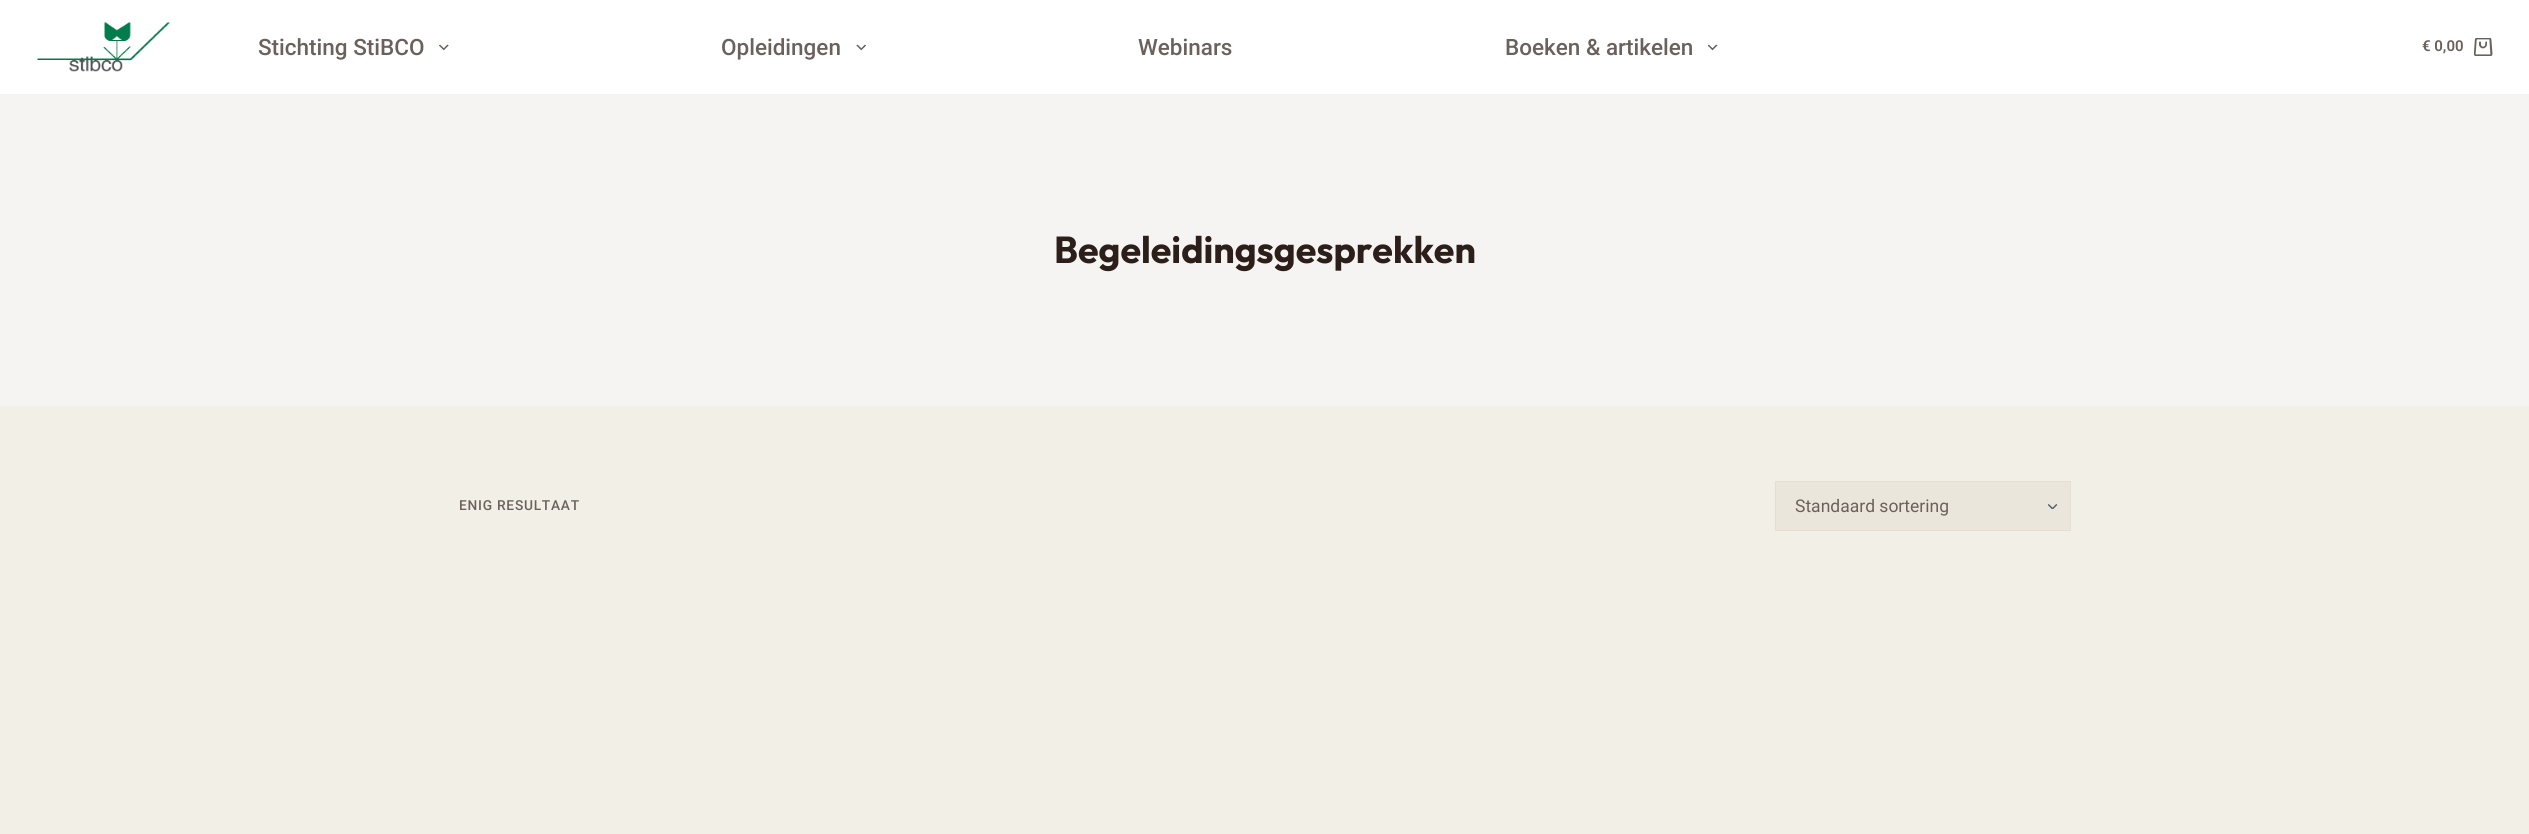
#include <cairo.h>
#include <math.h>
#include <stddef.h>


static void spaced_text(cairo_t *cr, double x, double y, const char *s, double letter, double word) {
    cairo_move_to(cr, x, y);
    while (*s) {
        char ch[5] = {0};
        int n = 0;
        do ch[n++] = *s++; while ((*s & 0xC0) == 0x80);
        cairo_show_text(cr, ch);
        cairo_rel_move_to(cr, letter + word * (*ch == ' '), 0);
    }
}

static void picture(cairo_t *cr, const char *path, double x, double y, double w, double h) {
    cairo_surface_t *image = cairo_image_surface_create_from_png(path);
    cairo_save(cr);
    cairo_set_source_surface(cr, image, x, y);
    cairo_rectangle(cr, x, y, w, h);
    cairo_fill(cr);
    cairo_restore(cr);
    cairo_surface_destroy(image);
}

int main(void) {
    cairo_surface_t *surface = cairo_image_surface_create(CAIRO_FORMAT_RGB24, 2529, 834);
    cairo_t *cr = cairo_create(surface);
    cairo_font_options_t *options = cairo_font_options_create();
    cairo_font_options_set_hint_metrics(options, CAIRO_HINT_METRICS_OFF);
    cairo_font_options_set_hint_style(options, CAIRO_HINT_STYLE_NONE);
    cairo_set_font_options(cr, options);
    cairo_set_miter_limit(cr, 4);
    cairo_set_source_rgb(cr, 0.949, 0.937, 0.906);
    cairo_paint(cr);
    cairo_set_source_rgb(cr, 1, 1, 1);
    cairo_rectangle(cr, 0, 0, 2529, 94);
    cairo_fill(cr);
    picture(cr, "img1.png", 37, 22, 133, 50);
    cairo_select_font_face(cr, "Roboto Medium", CAIRO_FONT_SLANT_NORMAL, CAIRO_FONT_WEIGHT_NORMAL);
    cairo_set_font_size(cr, 22.5);
    cairo_set_source_rgb(cr, 0.416, 0.38, 0.365);
    cairo_move_to(cr, 258, 55);
    cairo_show_text(cr, "Stichting StiBCO");
    picture(cr, "img2.png", 439, 44, 10, 7);
    cairo_move_to(cr, 721, 55);
    cairo_show_text(cr, "Opleidingen");
    picture(cr, "img3.png", 856, 44, 10, 7);
    cairo_move_to(cr, 1138, 55);
    cairo_show_text(cr, "Webinars");
    cairo_move_to(cr, 1505, 55);
    cairo_show_text(cr, "Boeken & artikelen");
    picture(cr, "img4.png", 1708, 44, 10, 7);
    cairo_select_font_face(cr, "Roboto SemiBold", CAIRO_FONT_SLANT_NORMAL, CAIRO_FONT_WEIGHT_NORMAL);
    cairo_set_font_size(cr, 15);
    cairo_move_to(cr, 2422, 51);
    cairo_show_text(cr, "€ 0,00");
    picture(cr, "img5.png", 2474, 38, 19, 18);
    cairo_set_source_rgb(cr, 0.961, 0.957, 0.949);
    cairo_rectangle(cr, 0, 94, 2529, 312);
    cairo_fill(cr);
    cairo_select_font_face(cr, "Outfit", CAIRO_FONT_SLANT_NORMAL, CAIRO_FONT_WEIGHT_BOLD);
    cairo_set_font_size(cr, 37.5);
    cairo_set_source_rgb(cr, 0.173, 0.118, 0.094);
    cairo_move_to(cr, 1054, 263);
    cairo_show_text(cr, "Begeleidingsgesprekken");
    cairo_select_font_face(cr, "Roboto Medium", CAIRO_FONT_SLANT_NORMAL, CAIRO_FONT_WEIGHT_NORMAL);
    cairo_set_font_size(cr, 13.75);
    cairo_set_source_rgb(cr, 0.416, 0.38, 0.365);
    spaced_text(cr, 459, 510, "ENIG RESULTAAT", 0.75, 0);
    cairo_set_source_rgb(cr, 0.918, 0.902, 0.859);
    cairo_rectangle(cr, 1776, 482, 294, 48);
    cairo_fill(cr);
    picture(cr, "img6.png", 2048, 504, 10, 5);
    cairo_rectangle(cr, 1775.5, 481.5, 295, 49);
    cairo_set_source_rgb(cr, 0.89, 0.875, 0.835);
    cairo_set_line_width(cr, 1);
    cairo_stroke(cr);
    cairo_select_font_face(cr, "Roboto", CAIRO_FONT_SLANT_NORMAL, CAIRO_FONT_WEIGHT_NORMAL);
    cairo_set_font_size(cr, 17.5);
    cairo_set_source_rgb(cr, 0.416, 0.38, 0.365);
    cairo_move_to(cr, 1795, 512);
    cairo_show_text(cr, "Standaard sortering");
    cairo_surface_write_to_png(surface, "page.png");
    cairo_font_options_destroy(options);
    cairo_destroy(cr);
    cairo_surface_destroy(surface);
    return 0;
}
